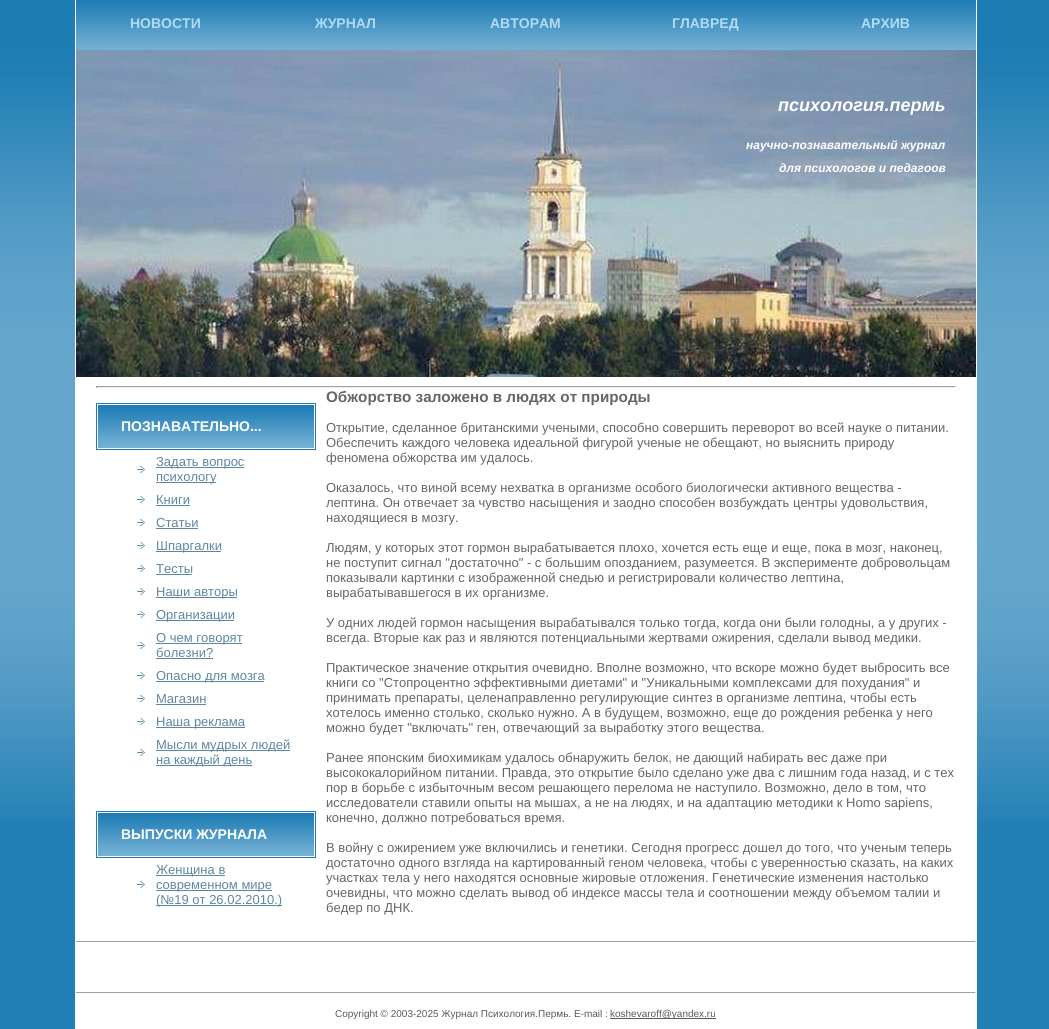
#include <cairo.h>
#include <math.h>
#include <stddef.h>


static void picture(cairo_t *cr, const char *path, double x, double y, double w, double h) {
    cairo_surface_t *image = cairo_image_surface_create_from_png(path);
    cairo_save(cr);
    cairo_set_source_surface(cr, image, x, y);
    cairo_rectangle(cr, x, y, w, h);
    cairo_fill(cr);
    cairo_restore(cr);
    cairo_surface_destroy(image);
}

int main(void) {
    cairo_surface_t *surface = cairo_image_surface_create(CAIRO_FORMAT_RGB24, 1049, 1029);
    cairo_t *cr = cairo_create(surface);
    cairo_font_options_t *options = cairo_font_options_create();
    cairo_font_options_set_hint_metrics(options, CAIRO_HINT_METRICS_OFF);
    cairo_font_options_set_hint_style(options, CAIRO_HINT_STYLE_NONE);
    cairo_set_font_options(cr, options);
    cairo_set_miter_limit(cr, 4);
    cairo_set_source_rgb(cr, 0.137, 0.502, 0.714);
    cairo_paint(cr);
    picture(cr, "img1.png", 0, 0, 1049, 820);
    cairo_set_source_rgb(cr, 1, 1, 1);
    cairo_rectangle(cr, 976, 0, 1, 1029);
    cairo_fill(cr);
    cairo_rectangle(cr, 75, 0, 1, 1029);
    cairo_fill(cr);
    picture(cr, "img2.png", 76, 1, 900, 49);
    cairo_select_font_face(cr, "Liberation Sans", CAIRO_FONT_SLANT_NORMAL, CAIRO_FONT_WEIGHT_BOLD);
    cairo_set_font_size(cr, 14);
    cairo_set_source_rgb(cr, 0.698, 0.855, 0.945);
    cairo_move_to(cr, 130, 28);
    cairo_show_text(cr, "НОВОСТИ");
    cairo_move_to(cr, 315, 28);
    cairo_show_text(cr, "ЖУРНАЛ");
    cairo_move_to(cr, 490, 28);
    cairo_show_text(cr, "АВТОРАМ");
    cairo_move_to(cr, 672, 28);
    cairo_show_text(cr, "ГЛАВРЕД");
    cairo_move_to(cr, 861, 28);
    cairo_show_text(cr, "АРХИВ");
    picture(cr, "img3.png", 76, 50, 900, 327);
    cairo_select_font_face(cr, "Liberation Sans", CAIRO_FONT_SLANT_ITALIC, CAIRO_FONT_WEIGHT_BOLD);
    cairo_set_font_size(cr, 18);
    cairo_set_source_rgb(cr, 1, 1, 1);
    cairo_move_to(cr, 778, 111);
    cairo_show_text(cr, "психология.пермь");
    cairo_set_font_size(cr, 12);
    cairo_move_to(cr, 746, 149);
    cairo_show_text(cr, "научно-познавательный журнал");
    cairo_move_to(cr, 779, 172);
    cairo_show_text(cr, "для психологов и педагоов");
    cairo_rectangle(cr, 76, 377, 900, 564);
    cairo_fill(cr);
    cairo_set_source_rgb(cr, 0.624, 0.624, 0.624);
    cairo_rectangle(cr, 96, 386, 860, 1);
    cairo_fill(cr);
    cairo_set_source_rgb(cr, 0.933, 0.933, 0.933);
    cairo_rectangle(cr, 955, 386, 1, 2);
    cairo_fill(cr);
    cairo_rectangle(cr, 96, 387, 860, 1);
    cairo_fill(cr);
    cairo_set_source_rgb(cr, 0.624, 0.624, 0.624);
    cairo_rectangle(cr, 96, 386, 1, 2);
    cairo_fill(cr);
    picture(cr, "img4.png", 96, 403, 220, 47);
    cairo_select_font_face(cr, "Liberation Sans", CAIRO_FONT_SLANT_NORMAL, CAIRO_FONT_WEIGHT_BOLD);
    cairo_set_font_size(cr, 14);
    cairo_set_source_rgb(cr, 1, 1, 1);
    cairo_move_to(cr, 121, 431);
    cairo_show_text(cr, "ПОЗНАВАТЕЛЬНО...");
    picture(cr, "img5.png", 137, 466, 8, 7);
    cairo_set_source_rgb(cr, 0.365, 0.529, 0.627);
    cairo_rectangle(cr, 156, 467, 88, 1);
    cairo_fill(cr);
    cairo_select_font_face(cr, "Liberation Sans", CAIRO_FONT_SLANT_NORMAL, CAIRO_FONT_WEIGHT_NORMAL);
    cairo_set_font_size(cr, 13);
    cairo_move_to(cr, 156, 466);
    cairo_show_text(cr, "Задать вопрос");
    cairo_rectangle(cr, 156, 482, 60, 1);
    cairo_fill(cr);
    cairo_move_to(cr, 156, 481);
    cairo_show_text(cr, "психологу");
    picture(cr, "img5.png", 137, 496, 8, 7);
    cairo_move_to(cr, 156, 504);
    cairo_show_text(cr, "Книги");
    cairo_rectangle(cr, 156, 505, 34, 1);
    cairo_fill(cr);
    picture(cr, "img5.png", 137, 519, 8, 7);
    cairo_move_to(cr, 156, 527);
    cairo_show_text(cr, "Статьи");
    cairo_rectangle(cr, 156, 528, 42, 1);
    cairo_fill(cr);
    picture(cr, "img5.png", 137, 542, 8, 7);
    cairo_rectangle(cr, 156, 551, 65, 1);
    cairo_fill(cr);
    cairo_move_to(cr, 156, 550);
    cairo_show_text(cr, "Шпаргалки");
    picture(cr, "img5.png", 137, 565, 8, 7);
    cairo_move_to(cr, 156, 573);
    cairo_show_text(cr, "Тесты");
    cairo_rectangle(cr, 156, 574, 36, 1);
    cairo_fill(cr);
    picture(cr, "img5.png", 137, 588, 8, 7);
    cairo_rectangle(cr, 156, 597, 81, 1);
    cairo_fill(cr);
    cairo_move_to(cr, 156, 596);
    cairo_show_text(cr, "Наши авторы");
    picture(cr, "img5.png", 137, 611, 8, 7);
    cairo_rectangle(cr, 156, 620, 78, 1);
    cairo_fill(cr);
    cairo_move_to(cr, 156, 619);
    cairo_show_text(cr, "Организации");
    picture(cr, "img5.png", 137, 642, 8, 7);
    cairo_rectangle(cr, 156, 643, 86, 1);
    cairo_fill(cr);
    cairo_move_to(cr, 156, 642);
    cairo_show_text(cr, "О чем говорят");
    cairo_move_to(cr, 156, 657);
    cairo_show_text(cr, "болезни?");
    cairo_rectangle(cr, 156, 658, 57, 1);
    cairo_fill(cr);
    picture(cr, "img5.png", 137, 672, 8, 7);
    cairo_rectangle(cr, 156, 681, 108, 1);
    cairo_fill(cr);
    cairo_move_to(cr, 156, 680);
    cairo_show_text(cr, "Опасно для мозга");
    picture(cr, "img5.png", 137, 695, 8, 7);
    cairo_move_to(cr, 156, 703);
    cairo_show_text(cr, "Магазин");
    cairo_rectangle(cr, 156, 704, 50, 1);
    cairo_fill(cr);
    picture(cr, "img5.png", 137, 718, 8, 7);
    cairo_rectangle(cr, 156, 727, 89, 1);
    cairo_fill(cr);
    cairo_move_to(cr, 156, 726);
    cairo_show_text(cr, "Наша реклама");
    picture(cr, "img5.png", 137, 749, 8, 7);
    cairo_rectangle(cr, 156, 750, 134, 1);
    cairo_fill(cr);
    cairo_move_to(cr, 156, 749);
    cairo_show_text(cr, "Мысли мудрых людей");
    cairo_rectangle(cr, 156, 765, 96, 1);
    cairo_fill(cr);
    cairo_move_to(cr, 156, 764);
    cairo_show_text(cr, "на каждый день");
    picture(cr, "img4.png", 96, 811, 220, 47);
    cairo_select_font_face(cr, "Liberation Sans", CAIRO_FONT_SLANT_NORMAL, CAIRO_FONT_WEIGHT_BOLD);
    cairo_set_font_size(cr, 14);
    cairo_set_source_rgb(cr, 1, 1, 1);
    cairo_move_to(cr, 121, 839);
    cairo_show_text(cr, "ВЫПУСКИ ЖУРНАЛА");
    picture(cr, "img5.png", 137, 881, 8, 7);
    cairo_set_source_rgb(cr, 0.365, 0.529, 0.627);
    cairo_rectangle(cr, 156, 875, 69, 1);
    cairo_fill(cr);
    cairo_select_font_face(cr, "Liberation Sans", CAIRO_FONT_SLANT_NORMAL, CAIRO_FONT_WEIGHT_NORMAL);
    cairo_set_font_size(cr, 13);
    cairo_move_to(cr, 156, 874);
    cairo_show_text(cr, "Женщина в");
    cairo_rectangle(cr, 156, 890, 116, 1);
    cairo_fill(cr);
    cairo_move_to(cr, 156, 889);
    cairo_show_text(cr, "современном мире");
    cairo_rectangle(cr, 156, 905, 126, 1);
    cairo_fill(cr);
    cairo_move_to(cr, 156, 904);
    cairo_show_text(cr, "(№19 от 26.02.2010.)");
    cairo_select_font_face(cr, "Liberation Sans", CAIRO_FONT_SLANT_NORMAL, CAIRO_FONT_WEIGHT_BOLD);
    cairo_set_font_size(cr, 15.25);
    cairo_set_source_rgb(cr, 0.4, 0.4, 0.4);
    cairo_move_to(cr, 326, 402);
    cairo_show_text(cr, "Обжорство заложено в людях от природы");
    cairo_select_font_face(cr, "Liberation Sans", CAIRO_FONT_SLANT_NORMAL, CAIRO_FONT_WEIGHT_NORMAL);
    cairo_set_font_size(cr, 13);
    cairo_move_to(cr, 326, 432);
    cairo_show_text(cr, "Открытие, сделанное британскими учеными, способно совершить переворот во всей науке о питании.");
    cairo_move_to(cr, 326, 447);
    cairo_show_text(cr, "Обеспечить каждого человека идеальной фигурой ученые не обещают, но выяснить природу");
    cairo_move_to(cr, 326, 462);
    cairo_show_text(cr, "феномена обжорства им удалось.");
    cairo_move_to(cr, 326, 492);
    cairo_show_text(cr, "Оказалось, что виной всему нехватка в организме особого биологически активного вещества -");
    cairo_move_to(cr, 326, 507);
    cairo_show_text(cr, "лептина. Он отвечает за чувство насыщения и заодно способен возбуждать центры удовольствия,");
    cairo_move_to(cr, 326, 522);
    cairo_show_text(cr, "находящиеся в мозгу.");
    cairo_move_to(cr, 326, 552);
    cairo_show_text(cr, "Людям, у которых этот гормон вырабатывается плохо, хочется есть еще и еще, пока в мозг, наконец,");
    cairo_move_to(cr, 326, 567);
    cairo_show_text(cr, "не поступит сигнал \"достаточно\" - с большим опозданием, разумеется. В эксперименте добровольцам");
    cairo_move_to(cr, 326, 582);
    cairo_show_text(cr, "показывали картинки с изображенной снедью и регистрировали количество лептина,");
    cairo_move_to(cr, 326, 597);
    cairo_show_text(cr, "вырабатывавшегося в их организме.");
    cairo_move_to(cr, 326, 627);
    cairo_show_text(cr, "У одних людей гормон насыщения вырабатывался только тогда, когда они были голодны, а у других -");
    cairo_move_to(cr, 326, 642);
    cairo_show_text(cr, "всегда. Вторые как раз и являются потенциальными жертвами ожирения, сделали вывод медики.");
    cairo_move_to(cr, 326, 672);
    cairo_show_text(cr, "Практическое значение открытия очевидно. Вполне возможно, что вскоре можно будет выбросить все");
    cairo_move_to(cr, 326, 687);
    cairo_show_text(cr, "книги со \"Стопроцентно эффективными диетами\" и \"Уникальными комплексами для похудания\" и");
    cairo_move_to(cr, 326, 702);
    cairo_show_text(cr, "принимать препараты, целенаправленно регулирующие синтез в организме лептина, чтобы есть");
    cairo_move_to(cr, 326, 717);
    cairo_show_text(cr, "хотелось именно столько, сколько нужно. А в будущем, возможно, еще до рождения ребенка у него");
    cairo_move_to(cr, 326, 732);
    cairo_show_text(cr, "можно будет \"включать\" ген, отвечающий за выработку этого вещества.");
    cairo_move_to(cr, 326, 762);
    cairo_show_text(cr, "Ранее японским биохимикам удалось обнаружить белок, не дающий набирать вес даже при");
    cairo_move_to(cr, 326, 777);
    cairo_show_text(cr, "высококалорийном питании. Правда, это открытие было сделано уже два с лишним года назад, и с тех");
    cairo_move_to(cr, 326, 792);
    cairo_show_text(cr, "пор в борьбе с избыточным весом решающего перелома не наступило. Возможно, дело в том, что");
    cairo_move_to(cr, 326, 807);
    cairo_show_text(cr, "исследователи ставили опыты на мышах, а не на людях, и на адаптацию методики к Homo sapiens,");
    cairo_move_to(cr, 326, 822);
    cairo_show_text(cr, "конечно, должно потребоваться время.");
    cairo_move_to(cr, 326, 852);
    cairo_show_text(cr, "В войну с ожирением уже включились и генетики. Сегодня прогресс дошел до того, что ученым теперь");
    cairo_move_to(cr, 326, 867);
    cairo_show_text(cr, "достаточно одного взгляда на картированный геном человека, чтобы с уверенностью сказать, на каких");
    cairo_move_to(cr, 326, 882);
    cairo_show_text(cr, "участках тела у него находятся основные жировые отложения. Генетические изменения настолько");
    cairo_move_to(cr, 326, 897);
    cairo_show_text(cr, "очевидны, что можно сделать вывод об индексе массы тела и соотношении между объемом талии и");
    cairo_move_to(cr, 326, 912);
    cairo_show_text(cr, "бедер по ДНК.");
    cairo_set_source_rgb(cr, 1, 1, 1);
    cairo_rectangle(cr, 76, 942, 900, 87);
    cairo_fill(cr);
    cairo_set_source_rgb(cr, 0.624, 0.624, 0.624);
    cairo_rectangle(cr, 76, 941, 900, 1);
    cairo_fill(cr);
    cairo_set_source_rgb(cr, 0.933, 0.933, 0.933);
    cairo_rectangle(cr, 975, 941, 1, 1);
    cairo_fill(cr);
    cairo_set_source_rgb(cr, 0.624, 0.624, 0.624);
    cairo_rectangle(cr, 76, 992, 900, 1);
    cairo_fill(cr);
    cairo_set_source_rgb(cr, 0.933, 0.933, 0.933);
    cairo_rectangle(cr, 975, 992, 1, 1);
    cairo_fill(cr);
    cairo_set_font_size(cr, 10);
    cairo_set_source_rgb(cr, 0.349, 0.349, 0.349);
    cairo_move_to(cr, 335, 1017);
    cairo_show_text(cr, "Copyright © 2003-2025 Журнал Психология.Пермь. E-mail :");
    cairo_rectangle(cr, 610, 1018, 106, 1);
    cairo_fill(cr);
    cairo_move_to(cr, 610, 1017);
    cairo_show_text(cr, "koshevaroff@yandex.ru");
    cairo_surface_write_to_png(surface, "page.png");
    cairo_font_options_destroy(options);
    cairo_destroy(cr);
    cairo_surface_destroy(surface);
    return 0;
}
